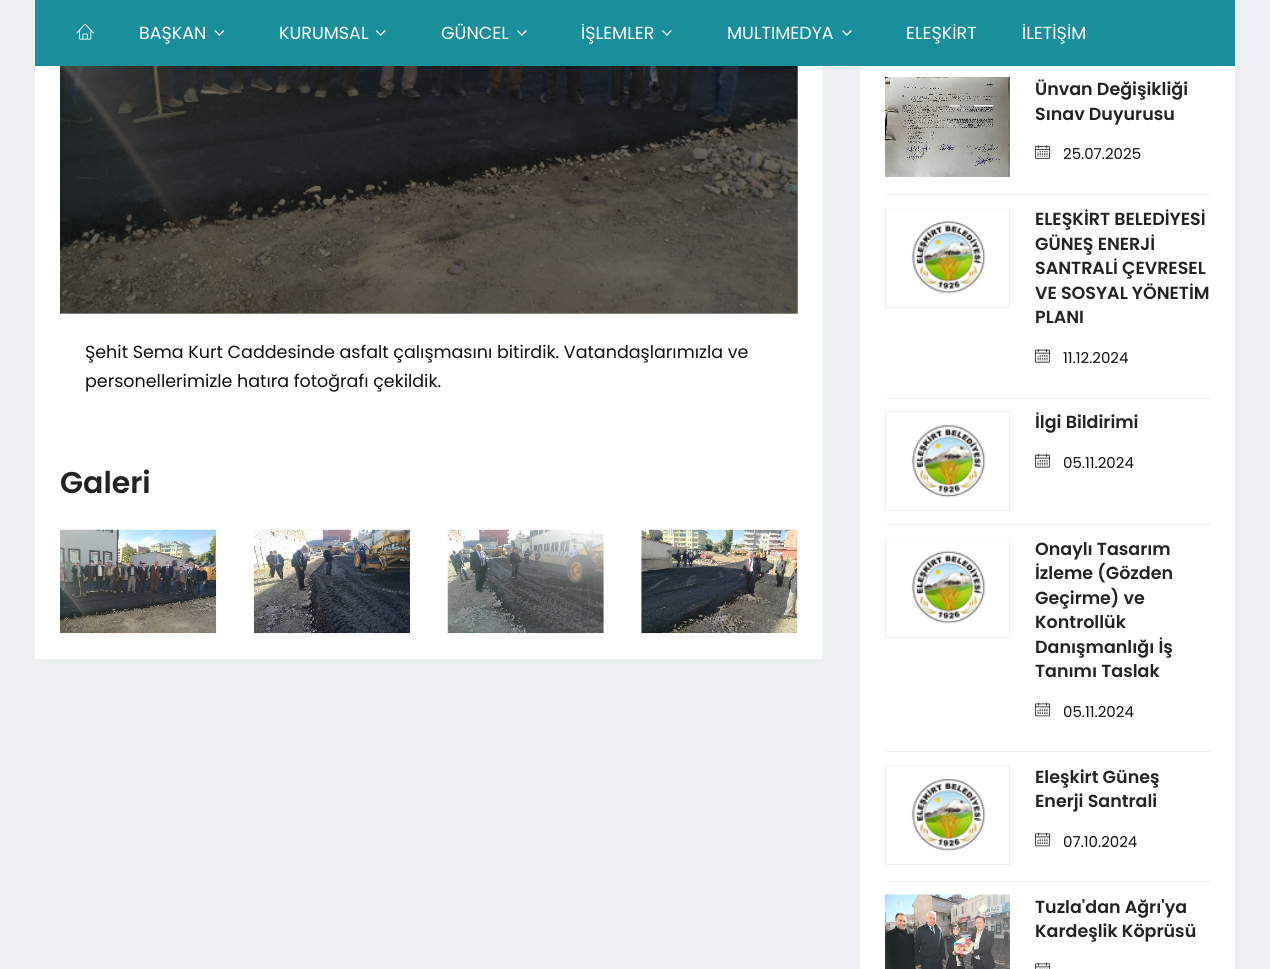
#include <cairo.h>
#include <math.h>
#include <stddef.h>


static void picture(cairo_t *cr, const char *path, double x, double y, double w, double h) {
    cairo_surface_t *image = cairo_image_surface_create_from_png(path);
    cairo_save(cr);
    cairo_set_source_surface(cr, image, x, y);
    cairo_rectangle(cr, x, y, w, h);
    cairo_fill(cr);
    cairo_restore(cr);
    cairo_surface_destroy(image);
}

int main(void) {
    cairo_surface_t *surface = cairo_image_surface_create(CAIRO_FORMAT_RGB24, 1270, 969);
    cairo_t *cr = cairo_create(surface);
    cairo_font_options_t *options = cairo_font_options_create();
    cairo_font_options_set_hint_metrics(options, CAIRO_HINT_METRICS_OFF);
    cairo_font_options_set_hint_style(options, CAIRO_HINT_STYLE_NONE);
    cairo_set_font_options(cr, options);
    cairo_set_miter_limit(cr, 4);
    cairo_set_source_rgb(cr, 0.925, 0.941, 0.945);
    cairo_paint(cr);
    cairo_set_source_rgb(cr, 0.098, 0.561, 0.612);
    cairo_rectangle(cr, 35, 0, 1200, 66);
    cairo_fill(cr);
    picture(cr, "img1.png", 76, 23, 18, 17);
    cairo_select_font_face(cr, "Poppins", CAIRO_FONT_SLANT_NORMAL, CAIRO_FONT_WEIGHT_NORMAL);
    cairo_set_font_size(cr, 17.5);
    cairo_set_source_rgb(cr, 1, 1, 1);
    cairo_move_to(cr, 139, 39);
    cairo_show_text(cr, "BAŞKAN");
    picture(cr, "img2.png", 214, 30, 11, 6);
    cairo_move_to(cr, 279, 39);
    cairo_show_text(cr, "KURUMSAL");
    picture(cr, "img3.png", 375, 30, 11, 6);
    cairo_move_to(cr, 441, 39);
    cairo_show_text(cr, "GÜNCEL");
    picture(cr, "img4.png", 517, 30, 10, 6);
    cairo_move_to(cr, 581, 39);
    cairo_show_text(cr, "İŞLEMLER");
    picture(cr, "img4.png", 662, 30, 10, 6);
    cairo_move_to(cr, 727, 39);
    cairo_show_text(cr, "MULTIMEDYA");
    picture(cr, "img4.png", 842, 30, 10, 6);
    cairo_move_to(cr, 906, 39);
    cairo_show_text(cr, "ELEŞKİRT");
    cairo_move_to(cr, 1022, 39);
    cairo_show_text(cr, "İLETİŞİM");
    cairo_rectangle(cr, 35, 66, 788, 593);
    cairo_fill(cr);
    cairo_set_source_rgb(cr, 0.6, 0.6, 0.6);
    cairo_rectangle(cr, 60, 66, 738, 248);
    cairo_fill(cr);
    picture(cr, "img5.png", 60, 66, 738, 248);
    cairo_set_source_rgb(cr, 0.059, 0.059, 0.059);
    cairo_move_to(cr, 85, 358);
    cairo_show_text(cr, "Şehit Sema Kurt Caddesinde asfalt çalışmasını bitirdik. Vatandaşlarımızla ve");
    cairo_move_to(cr, 85, 387);
    cairo_show_text(cr, "personellerimizle hatıra fotoğrafı çekildik.");
    cairo_select_font_face(cr, "Poppins SemiBold", CAIRO_FONT_SLANT_NORMAL, CAIRO_FONT_WEIGHT_NORMAL);
    cairo_set_font_size(cr, 30);
    cairo_set_source_rgb(cr, 0.133, 0.133, 0.133);
    cairo_move_to(cr, 60, 493);
    cairo_show_text(cr, "Galeri");
    picture(cr, "img6.png", 60, 529, 157, 105);
    picture(cr, "img7.png", 253, 529, 157, 105);
    picture(cr, "img8.png", 447, 529, 157, 105);
    picture(cr, "img9.png", 641, 529, 157, 105);
    cairo_set_source_rgb(cr, 1, 1, 1);
    cairo_rectangle(cr, 860, 66, 375, 903);
    cairo_fill(cr);
    cairo_set_source_rgb(cr, 0.933, 0.933, 0.933);
    cairo_rectangle(cr, 885, 194, 325, 1);
    cairo_fill(cr);
    picture(cr, "img10.png", 885, 77, 125, 100);
    cairo_set_font_size(cr, 17.5);
    cairo_set_source_rgb(cr, 0.133, 0.133, 0.133);
    cairo_move_to(cr, 1035, 95);
    cairo_show_text(cr, "Ünvan Değişikliği");
    cairo_move_to(cr, 1035, 120);
    cairo_show_text(cr, "Sınav Duyurusu");
    picture(cr, "img11.png", 1035, 145, 15, 14);
    cairo_select_font_face(cr, "Poppins", CAIRO_FONT_SLANT_NORMAL, CAIRO_FONT_WEIGHT_NORMAL);
    cairo_set_font_size(cr, 15);
    cairo_set_source_rgb(cr, 0.059, 0.059, 0.059);
    cairo_move_to(cr, 1063, 159);
    cairo_show_text(cr, "25.07.2025");
    cairo_set_source_rgb(cr, 0.933, 0.933, 0.933);
    cairo_rectangle(cr, 885, 398, 325, 1);
    cairo_fill(cr);
    cairo_rectangle(cr, 885.5, 208.5, 124, 99);
    cairo_set_line_width(cr, 1);
    cairo_stroke(cr);
    picture(cr, "img12.png", 886, 208, 123, 86);
    cairo_select_font_face(cr, "Poppins SemiBold", CAIRO_FONT_SLANT_NORMAL, CAIRO_FONT_WEIGHT_NORMAL);
    cairo_set_font_size(cr, 17.5);
    cairo_set_source_rgb(cr, 0.133, 0.133, 0.133);
    cairo_move_to(cr, 1035, 225);
    cairo_show_text(cr, "ELEŞKİRT BELEDİYESİ");
    cairo_move_to(cr, 1035, 250);
    cairo_show_text(cr, "GÜNEŞ ENERJİ");
    cairo_move_to(cr, 1035, 274);
    cairo_show_text(cr, "SANTRALİ ÇEVRESEL");
    cairo_move_to(cr, 1035, 299);
    cairo_show_text(cr, "VE SOSYAL YÖNETİM");
    cairo_move_to(cr, 1035, 323);
    cairo_show_text(cr, "PLANI");
    picture(cr, "img13.png", 1035, 349, 15, 14);
    cairo_select_font_face(cr, "Poppins", CAIRO_FONT_SLANT_NORMAL, CAIRO_FONT_WEIGHT_NORMAL);
    cairo_set_font_size(cr, 15);
    cairo_set_source_rgb(cr, 0.059, 0.059, 0.059);
    cairo_move_to(cr, 1063, 363);
    cairo_show_text(cr, "11.12.2024");
    cairo_set_source_rgb(cr, 0.933, 0.933, 0.933);
    cairo_rectangle(cr, 885, 524, 325, 1);
    cairo_fill(cr);
    cairo_rectangle(cr, 885.5, 411.5, 124, 99);
    cairo_stroke(cr);
    picture(cr, "img14.png", 911, 424, 75, 74);
    cairo_select_font_face(cr, "Poppins SemiBold", CAIRO_FONT_SLANT_NORMAL, CAIRO_FONT_WEIGHT_NORMAL);
    cairo_set_font_size(cr, 17.5);
    cairo_set_source_rgb(cr, 0.133, 0.133, 0.133);
    cairo_move_to(cr, 1035, 428);
    cairo_show_text(cr, "İlgi Bildirimi");
    picture(cr, "img13.png", 1035, 454, 15, 14);
    cairo_select_font_face(cr, "Poppins", CAIRO_FONT_SLANT_NORMAL, CAIRO_FONT_WEIGHT_NORMAL);
    cairo_set_font_size(cr, 15);
    cairo_set_source_rgb(cr, 0.059, 0.059, 0.059);
    cairo_move_to(cr, 1063, 468);
    cairo_show_text(cr, "05.11.2024");
    cairo_set_source_rgb(cr, 0.933, 0.933, 0.933);
    cairo_rectangle(cr, 885, 751, 325, 1);
    cairo_fill(cr);
    cairo_rectangle(cr, 885.5, 538.5, 124, 99);
    cairo_stroke(cr);
    picture(cr, "img12.png", 886, 538, 123, 86);
    cairo_select_font_face(cr, "Poppins SemiBold", CAIRO_FONT_SLANT_NORMAL, CAIRO_FONT_WEIGHT_NORMAL);
    cairo_set_font_size(cr, 17.5);
    cairo_set_source_rgb(cr, 0.133, 0.133, 0.133);
    cairo_move_to(cr, 1035, 555);
    cairo_show_text(cr, "Onaylı Tasarım");
    cairo_move_to(cr, 1035, 579);
    cairo_show_text(cr, "İzleme (Gözden");
    cairo_move_to(cr, 1035, 604);
    cairo_show_text(cr, "Geçirme) ve");
    cairo_move_to(cr, 1035, 628);
    cairo_show_text(cr, "Kontrollük");
    cairo_move_to(cr, 1035, 653);
    cairo_show_text(cr, "Danışmanlığı İş");
    cairo_move_to(cr, 1035, 677);
    cairo_show_text(cr, "Tanımı Taslak");
    picture(cr, "img15.png", 1035, 702, 15, 15);
    cairo_select_font_face(cr, "Poppins", CAIRO_FONT_SLANT_NORMAL, CAIRO_FONT_WEIGHT_NORMAL);
    cairo_set_font_size(cr, 15);
    cairo_set_source_rgb(cr, 0.059, 0.059, 0.059);
    cairo_move_to(cr, 1063, 717);
    cairo_show_text(cr, "05.11.2024");
    cairo_set_source_rgb(cr, 0.933, 0.933, 0.933);
    cairo_rectangle(cr, 885, 881, 325, 1);
    cairo_fill(cr);
    cairo_rectangle(cr, 885.5, 765.5, 124, 99);
    cairo_stroke(cr);
    picture(cr, "img16.png", 887, 765, 121, 87);
    cairo_select_font_face(cr, "Poppins SemiBold", CAIRO_FONT_SLANT_NORMAL, CAIRO_FONT_WEIGHT_NORMAL);
    cairo_set_font_size(cr, 17.5);
    cairo_set_source_rgb(cr, 0.133, 0.133, 0.133);
    cairo_move_to(cr, 1035, 783);
    cairo_show_text(cr, "Eleşkirt Güneş");
    cairo_move_to(cr, 1035, 807);
    cairo_show_text(cr, "Enerji Santrali");
    picture(cr, "img15.png", 1035, 832, 15, 15);
    cairo_select_font_face(cr, "Poppins", CAIRO_FONT_SLANT_NORMAL, CAIRO_FONT_WEIGHT_NORMAL);
    cairo_set_font_size(cr, 15);
    cairo_set_source_rgb(cr, 0.059, 0.059, 0.059);
    cairo_move_to(cr, 1063, 847);
    cairo_show_text(cr, "07.10.2024");
    picture(cr, "img17.png", 885, 894, 125, 75);
    cairo_select_font_face(cr, "Poppins SemiBold", CAIRO_FONT_SLANT_NORMAL, CAIRO_FONT_WEIGHT_NORMAL);
    cairo_set_font_size(cr, 17.5);
    cairo_set_source_rgb(cr, 0.133, 0.133, 0.133);
    cairo_move_to(cr, 1035, 913);
    cairo_show_text(cr, "Tuzla'dan Ağrı'ya");
    cairo_move_to(cr, 1035, 937);
    cairo_show_text(cr, "Kardeşlik Köprüsü");
    picture(cr, "img18.png", 1035, 962, 15, 7);
    cairo_surface_write_to_png(surface, "page.png");
    cairo_font_options_destroy(options);
    cairo_destroy(cr);
    cairo_surface_destroy(surface);
    return 0;
}
